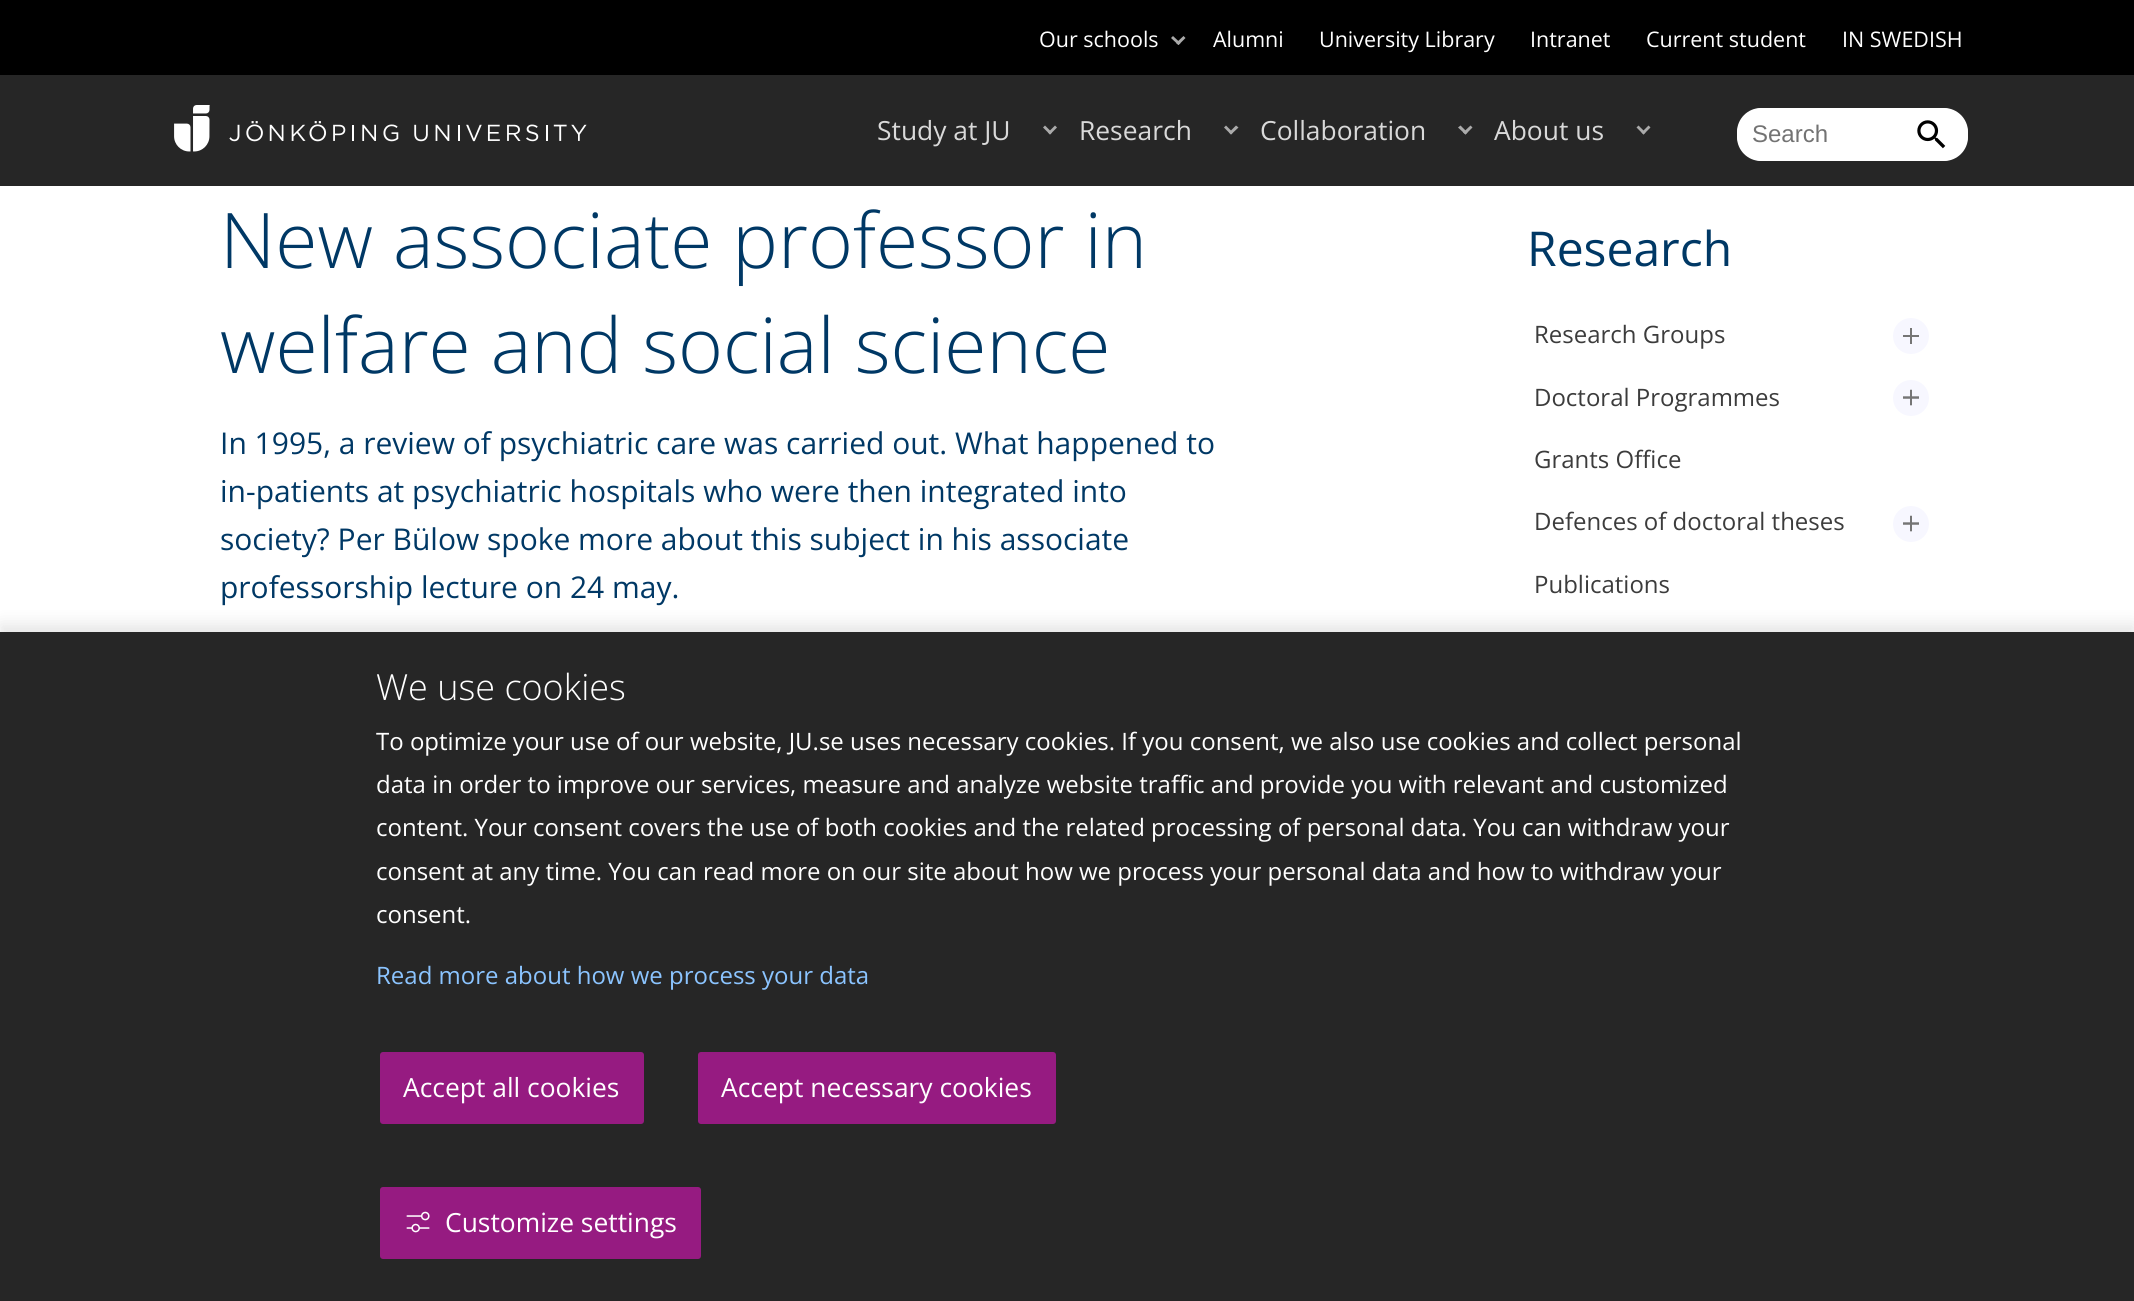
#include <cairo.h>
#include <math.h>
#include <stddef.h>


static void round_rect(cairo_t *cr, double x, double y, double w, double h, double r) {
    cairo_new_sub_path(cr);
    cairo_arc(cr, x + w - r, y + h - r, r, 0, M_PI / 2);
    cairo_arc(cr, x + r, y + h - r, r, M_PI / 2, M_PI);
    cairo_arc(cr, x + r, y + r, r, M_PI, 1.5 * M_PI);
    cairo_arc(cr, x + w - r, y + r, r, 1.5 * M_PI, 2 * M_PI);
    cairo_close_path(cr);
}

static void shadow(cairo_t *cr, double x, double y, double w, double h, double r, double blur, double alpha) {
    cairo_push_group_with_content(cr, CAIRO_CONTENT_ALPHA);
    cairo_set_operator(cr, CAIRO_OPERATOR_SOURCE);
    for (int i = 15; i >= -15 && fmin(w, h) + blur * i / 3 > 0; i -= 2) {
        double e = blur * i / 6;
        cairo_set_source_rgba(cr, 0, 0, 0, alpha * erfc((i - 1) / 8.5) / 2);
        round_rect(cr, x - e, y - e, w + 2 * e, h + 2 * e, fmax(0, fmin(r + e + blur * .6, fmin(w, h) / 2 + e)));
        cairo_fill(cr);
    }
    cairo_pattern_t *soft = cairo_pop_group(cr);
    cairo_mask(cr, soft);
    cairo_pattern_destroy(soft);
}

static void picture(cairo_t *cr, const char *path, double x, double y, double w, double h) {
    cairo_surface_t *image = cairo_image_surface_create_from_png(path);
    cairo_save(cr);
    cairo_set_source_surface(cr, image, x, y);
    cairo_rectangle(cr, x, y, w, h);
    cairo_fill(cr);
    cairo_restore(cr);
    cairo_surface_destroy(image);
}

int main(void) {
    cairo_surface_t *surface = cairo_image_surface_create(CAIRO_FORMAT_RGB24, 2134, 1301);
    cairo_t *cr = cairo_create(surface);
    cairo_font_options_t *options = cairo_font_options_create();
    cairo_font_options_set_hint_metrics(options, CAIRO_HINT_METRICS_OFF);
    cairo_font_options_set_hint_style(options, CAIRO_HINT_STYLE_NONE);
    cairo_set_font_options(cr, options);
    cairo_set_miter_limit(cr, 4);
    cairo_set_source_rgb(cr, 1, 1, 1);
    cairo_paint(cr);
    cairo_set_source_rgb(cr, 0, 0, 0);
    cairo_rectangle(cr, 0, 0, 2134, 75);
    cairo_fill(cr);
    cairo_select_font_face(cr, "Open Sans", CAIRO_FONT_SLANT_NORMAL, CAIRO_FONT_WEIGHT_NORMAL);
    cairo_set_font_size(cr, 21.5);
    cairo_set_source_rgb(cr, 1, 1, 1);
    cairo_move_to(cr, 1039, 47);
    cairo_show_text(cr, "Our schools");
    cairo_set_source_rgb(cr, 0.667, 0.667, 0.667);
    cairo_new_path(cr);
    cairo_move_to(cr, 1176, 43);
    cairo_line_to(cr, 1183.5, 36);
    cairo_line_to(cr, 1185.5, 38);
    cairo_line_to(cr, 1178.5, 45);
    cairo_close_path(cr);
    cairo_fill(cr);
    cairo_new_path(cr);
    cairo_move_to(cr, 1171, 38);
    cairo_line_to(cr, 1173, 36);
    cairo_line_to(cr, 1180.5, 43);
    cairo_line_to(cr, 1178.5, 45);
    cairo_close_path(cr);
    cairo_fill(cr);
    cairo_set_source_rgb(cr, 1, 1, 1);
    cairo_move_to(cr, 1213, 47);
    cairo_show_text(cr, "Alumni");
    cairo_move_to(cr, 1319, 47);
    cairo_show_text(cr, "University Library");
    cairo_move_to(cr, 1530, 47);
    cairo_show_text(cr, "Intranet");
    cairo_move_to(cr, 1646, 47);
    cairo_show_text(cr, "Current student");
    cairo_move_to(cr, 1842, 47);
    cairo_show_text(cr, "IN SWEDISH");
    cairo_set_source_rgb(cr, 0.149, 0.149, 0.149);
    cairo_rectangle(cr, 0, 75, 2134, 111);
    cairo_fill(cr);
    picture(cr, "img1.png", 174, 105, 413, 47);
    cairo_set_font_size(cr, 26.4);
    cairo_set_source_rgb(cr, 0.851, 0.851, 0.851);
    cairo_move_to(cr, 877, 140);
    cairo_show_text(cr, "Study at JU");
    cairo_set_source_rgb(cr, 0.667, 0.667, 0.667);
    cairo_new_path(cr);
    cairo_move_to(cr, 1048, 132.5);
    cairo_line_to(cr, 1055, 125.5);
    cairo_line_to(cr, 1057, 127.5);
    cairo_line_to(cr, 1050, 134.5);
    cairo_close_path(cr);
    cairo_fill(cr);
    cairo_new_path(cr);
    cairo_move_to(cr, 1043, 127.5);
    cairo_line_to(cr, 1045, 125.5);
    cairo_line_to(cr, 1052, 132.5);
    cairo_line_to(cr, 1050, 134.5);
    cairo_close_path(cr);
    cairo_fill(cr);
    cairo_set_source_rgb(cr, 0.851, 0.851, 0.851);
    cairo_move_to(cr, 1079, 140);
    cairo_show_text(cr, "Research");
    cairo_set_source_rgb(cr, 0.667, 0.667, 0.667);
    cairo_new_path(cr);
    cairo_move_to(cr, 1229, 132.5);
    cairo_line_to(cr, 1236, 125.5);
    cairo_line_to(cr, 1238.5, 127.5);
    cairo_line_to(cr, 1231, 134.5);
    cairo_close_path(cr);
    cairo_fill(cr);
    cairo_new_path(cr);
    cairo_move_to(cr, 1224, 127.5);
    cairo_line_to(cr, 1226, 125.5);
    cairo_line_to(cr, 1233, 132.5);
    cairo_line_to(cr, 1231, 134.5);
    cairo_close_path(cr);
    cairo_fill(cr);
    cairo_set_source_rgb(cr, 0.851, 0.851, 0.851);
    cairo_move_to(cr, 1260, 140);
    cairo_show_text(cr, "Collaboration");
    cairo_set_source_rgb(cr, 0.667, 0.667, 0.667);
    cairo_new_path(cr);
    cairo_move_to(cr, 1463, 132.5);
    cairo_line_to(cr, 1470.5, 125.5);
    cairo_line_to(cr, 1472.5, 127.5);
    cairo_line_to(cr, 1465.5, 134.5);
    cairo_close_path(cr);
    cairo_fill(cr);
    cairo_new_path(cr);
    cairo_move_to(cr, 1458, 127.5);
    cairo_line_to(cr, 1460.5, 125.5);
    cairo_line_to(cr, 1467.5, 132.5);
    cairo_line_to(cr, 1465.5, 134.5);
    cairo_close_path(cr);
    cairo_fill(cr);
    cairo_set_source_rgb(cr, 0.851, 0.851, 0.851);
    cairo_move_to(cr, 1494, 140);
    cairo_show_text(cr, "About us");
    cairo_set_source_rgb(cr, 0.667, 0.667, 0.667);
    cairo_new_path(cr);
    cairo_move_to(cr, 1641.5, 132.5);
    cairo_line_to(cr, 1648.5, 125.5);
    cairo_line_to(cr, 1650.5, 127.5);
    cairo_line_to(cr, 1643.5, 134.5);
    cairo_close_path(cr);
    cairo_fill(cr);
    cairo_new_path(cr);
    cairo_move_to(cr, 1636.5, 127.5);
    cairo_line_to(cr, 1638.5, 125.5);
    cairo_line_to(cr, 1645.5, 132.5);
    cairo_line_to(cr, 1643.5, 134.5);
    cairo_close_path(cr);
    cairo_fill(cr);
    cairo_set_source_rgb(cr, 1, 1, 1);
    round_rect(cr, 1737, 108, 231, 53, 24);
    cairo_fill(cr);
    round_rect(cr, 1737, 108, 231, 53, 26.5);
    cairo_fill(cr);
    cairo_select_font_face(cr, "Liberation Sans", CAIRO_FONT_SLANT_NORMAL, CAIRO_FONT_WEIGHT_NORMAL);
    cairo_set_font_size(cr, 24);
    cairo_set_source_rgb(cr, 0.451, 0.451, 0.451);
    cairo_move_to(cr, 1752, 142);
    cairo_show_text(cr, "Search");
    picture(cr, "img2.png", 1917, 120, 29, 29);
    cairo_select_font_face(cr, "Open Sans Light", CAIRO_FONT_SLANT_NORMAL, CAIRO_FONT_WEIGHT_NORMAL);
    cairo_set_font_size(cr, 76.75);
    cairo_set_source_rgb(cr, 0, 0.22, 0.396);
    cairo_move_to(cr, 220, 268);
    cairo_show_text(cr, "New associate professor in");
    cairo_move_to(cr, 220, 373);
    cairo_show_text(cr, "welfare and social science");
    cairo_select_font_face(cr, "Open Sans", CAIRO_FONT_SLANT_NORMAL, CAIRO_FONT_WEIGHT_NORMAL);
    cairo_set_font_size(cr, 30);
    cairo_move_to(cr, 220, 454);
    cairo_show_text(cr, "In 1995, a review of psychiatric care was carried out. What happened to");
    cairo_move_to(cr, 220, 502);
    cairo_show_text(cr, "in-patients at psychiatric hospitals who were then integrated into");
    cairo_move_to(cr, 220, 550);
    cairo_show_text(cr, "society? Per Bülow spoke more about this subject in his associate");
    cairo_move_to(cr, 220, 598);
    cairo_show_text(cr, "professorship lecture on 24 may.");
    cairo_set_font_size(cr, 48);
    cairo_move_to(cr, 1527, 266);
    cairo_show_text(cr, "Research");
    cairo_set_font_size(cr, 24);
    cairo_set_source_rgb(cr, 0.235, 0.235, 0.235);
    cairo_move_to(cr, 1534, 343);
    cairo_show_text(cr, "Research Groups");
    cairo_set_source_rgb(cr, 0.965, 0.965, 1);
    cairo_new_path(cr);
    cairo_arc(cr, 1911, 336, 18, 0, 2 * M_PI);
    cairo_fill(cr);
    picture(cr, "img3.png", 1903, 328, 16, 16);
    cairo_set_source_rgb(cr, 0.235, 0.235, 0.235);
    cairo_move_to(cr, 1534, 406);
    cairo_show_text(cr, "Doctoral Programmes");
    cairo_set_source_rgb(cr, 0.965, 0.965, 1);
    cairo_new_path(cr);
    cairo_arc(cr, 1911, 398, 18, 0, 2 * M_PI);
    cairo_fill(cr);
    picture(cr, "img4.png", 1903, 389, 16, 17);
    cairo_set_source_rgb(cr, 0.235, 0.235, 0.235);
    cairo_move_to(cr, 1534, 468);
    cairo_show_text(cr, "Grants Office");
    cairo_move_to(cr, 1534, 530);
    cairo_show_text(cr, "Defences of doctoral theses");
    cairo_set_source_rgb(cr, 0.965, 0.965, 1);
    cairo_new_path(cr);
    cairo_arc(cr, 1911, 524, 18, 0, 2 * M_PI);
    cairo_fill(cr);
    picture(cr, "img4.png", 1903, 515, 16, 17);
    cairo_set_source_rgb(cr, 0.235, 0.235, 0.235);
    cairo_move_to(cr, 1534, 593);
    cairo_show_text(cr, "Publications");
    cairo_set_source_rgb(cr, 0, 0, 0);
    shadow(cr, 0, 624, 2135, 671, 0, 7.5, 0.1);
    cairo_set_source_rgb(cr, 0.149, 0.149, 0.149);
    cairo_rectangle(cr, 0, 632, 2134, 669);
    cairo_fill(cr);
    cairo_select_font_face(cr, "Open Sans Light", CAIRO_FONT_SLANT_NORMAL, CAIRO_FONT_WEIGHT_NORMAL);
    cairo_set_font_size(cr, 36);
    cairo_set_source_rgb(cr, 1, 1, 1);
    cairo_move_to(cr, 376, 700);
    cairo_show_text(cr, "We use cookies");
    cairo_select_font_face(cr, "Open Sans", CAIRO_FONT_SLANT_NORMAL, CAIRO_FONT_WEIGHT_NORMAL);
    cairo_set_font_size(cr, 24);
    cairo_move_to(cr, 376, 750);
    cairo_show_text(cr, "To optimize your use of our website, JU.se uses necessary cookies. If you consent, we also use cookies and collect personal");
    cairo_move_to(cr, 376, 793);
    cairo_show_text(cr, "data in order to improve our services, measure and analyze website traffic and provide you with relevant and customized");
    cairo_move_to(cr, 376, 836);
    cairo_show_text(cr, "content. Your consent covers the use of both cookies and the related processing of personal data. You can withdraw your");
    cairo_move_to(cr, 376, 880);
    cairo_show_text(cr, "consent at any time. You can read more on our site about how we process your personal data and how to withdraw your");
    cairo_move_to(cr, 376, 923);
    cairo_show_text(cr, "consent.");
    cairo_set_source_rgb(cr, 0.545, 0.769, 1);
    cairo_move_to(cr, 376, 984);
    cairo_show_text(cr, "Read more about how we process your data");
    cairo_set_source_rgb(cr, 0.588, 0.106, 0.506);
    round_rect(cr, 380, 1052, 264, 72, 3);
    cairo_fill(cr);
    cairo_set_font_size(cr, 26.4);
    cairo_set_source_rgb(cr, 1, 1, 1);
    cairo_move_to(cr, 403, 1097);
    cairo_show_text(cr, "Accept all cookies");
    cairo_set_source_rgb(cr, 0.588, 0.106, 0.506);
    round_rect(cr, 698, 1052, 358, 72, 3);
    cairo_fill(cr);
    cairo_set_source_rgb(cr, 1, 1, 1);
    cairo_move_to(cr, 721, 1097);
    cairo_show_text(cr, "Accept necessary cookies");
    cairo_set_source_rgb(cr, 0.588, 0.106, 0.506);
    round_rect(cr, 380, 1187, 321, 72, 3);
    cairo_fill(cr);
    picture(cr, "img5.png", 406, 1211, 24, 22);
    cairo_set_source_rgb(cr, 1, 1, 1);
    cairo_move_to(cr, 445, 1232);
    cairo_show_text(cr, "Customize settings");
    cairo_surface_write_to_png(surface, "page.png");
    cairo_font_options_destroy(options);
    cairo_destroy(cr);
    cairo_surface_destroy(surface);
    return 0;
}
